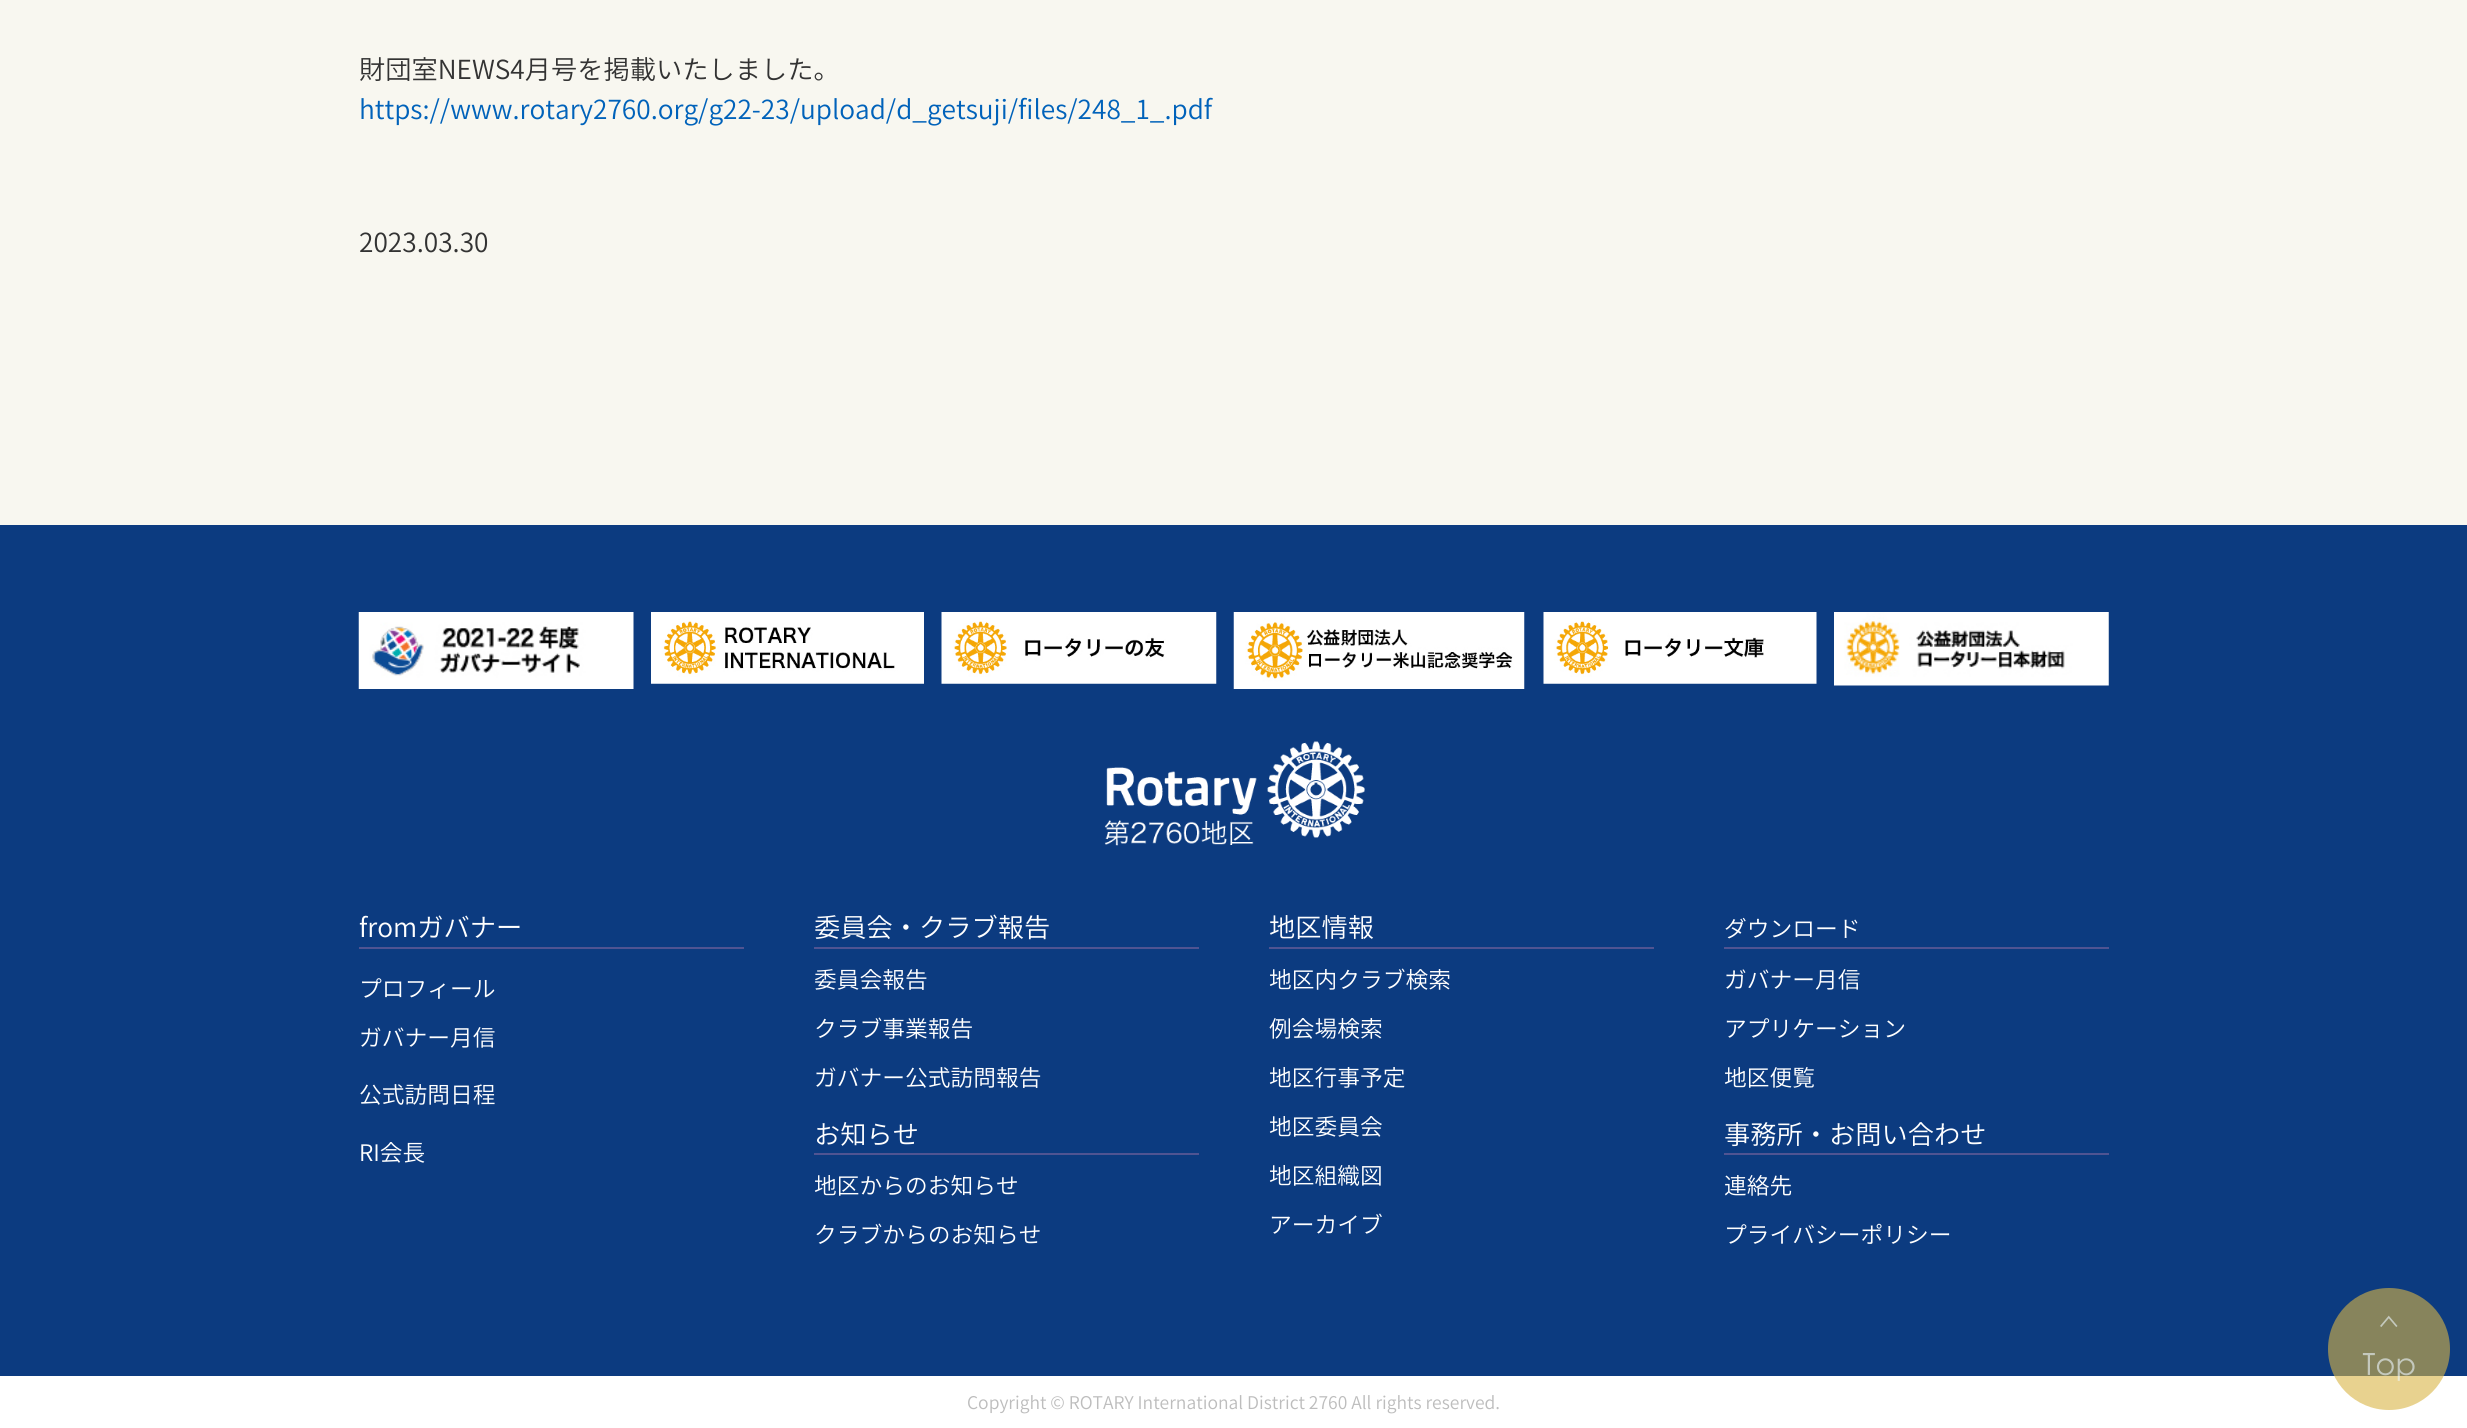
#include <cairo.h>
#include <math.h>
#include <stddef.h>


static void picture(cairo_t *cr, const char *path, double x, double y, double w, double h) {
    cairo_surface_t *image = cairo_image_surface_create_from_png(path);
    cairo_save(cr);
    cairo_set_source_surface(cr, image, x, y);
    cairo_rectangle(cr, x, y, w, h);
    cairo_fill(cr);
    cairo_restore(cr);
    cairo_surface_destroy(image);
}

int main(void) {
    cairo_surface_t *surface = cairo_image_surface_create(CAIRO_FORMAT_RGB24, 2467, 1428);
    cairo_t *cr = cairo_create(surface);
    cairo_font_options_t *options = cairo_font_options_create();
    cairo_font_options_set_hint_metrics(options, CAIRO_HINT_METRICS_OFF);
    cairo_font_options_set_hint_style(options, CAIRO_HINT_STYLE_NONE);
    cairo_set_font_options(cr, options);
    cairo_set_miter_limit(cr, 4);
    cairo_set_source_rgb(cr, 0.969, 0.965, 0.941);
    cairo_paint(cr);
    cairo_select_font_face(cr, "Noto Sans CJK JP Light", CAIRO_FONT_SLANT_NORMAL, CAIRO_FONT_WEIGHT_NORMAL);
    cairo_set_font_size(cr, 26.25);
    cairo_set_source_rgb(cr, 0.2, 0.2, 0.2);
    cairo_move_to(cr, 359, 79);
    cairo_show_text(cr, "財団室NEWS4月号を掲載いたしました。");
    cairo_set_source_rgb(cr, 0, 0.384, 0.729);
    cairo_move_to(cr, 359, 119);
    cairo_show_text(cr, "https://www.rotary2760.org/g22-23/upload/d_getsuji/files/248_1_.pdf");
    cairo_set_source_rgb(cr, 0.2, 0.2, 0.2);
    cairo_move_to(cr, 359, 252);
    cairo_show_text(cr, "2023.03.30");
    cairo_set_source_rgb(cr, 0.047, 0.231, 0.502);
    cairo_rectangle(cr, 0, 525, 2467, 851);
    cairo_fill(cr);
    picture(cr, "img1.png", 358, 612, 276, 77);
    picture(cr, "img2.png", 651, 612, 273, 72);
    picture(cr, "img3.png", 941, 612, 276, 72);
    picture(cr, "img4.png", 1233, 612, 292, 77);
    picture(cr, "img5.png", 1543, 612, 274, 72);
    picture(cr, "img6.png", 1834, 612, 275, 74);
    picture(cr, "img7.png", 1104, 741, 261, 105);
    cairo_set_source_rgb(cr, 0.314, 0.329, 0.573);
    cairo_rectangle(cr, 359, 947, 385, 2);
    cairo_fill(cr);
    cairo_set_source_rgb(cr, 1, 1, 1);
    cairo_move_to(cr, 359, 937);
    cairo_show_text(cr, "fromガバナー");
    cairo_set_font_size(cr, 22.75);
    cairo_move_to(cr, 359, 997);
    cairo_show_text(cr, "プロフィール");
    cairo_move_to(cr, 359, 1046);
    cairo_show_text(cr, "ガバナー月信");
    cairo_move_to(cr, 359, 1103);
    cairo_show_text(cr, "公式訪問日程");
    cairo_move_to(cr, 359, 1161);
    cairo_show_text(cr, "RI会長");
    cairo_set_source_rgb(cr, 0.314, 0.329, 0.573);
    cairo_rectangle(cr, 814, 947, 385, 2);
    cairo_fill(cr);
    cairo_set_font_size(cr, 26.25);
    cairo_set_source_rgb(cr, 1, 1, 1);
    cairo_move_to(cr, 814, 937);
    cairo_show_text(cr, "委員会・クラブ報告");
    cairo_set_font_size(cr, 22.75);
    cairo_move_to(cr, 814, 988);
    cairo_show_text(cr, "委員会報告");
    cairo_move_to(cr, 814, 1037);
    cairo_show_text(cr, "クラブ事業報告");
    cairo_move_to(cr, 814, 1086);
    cairo_show_text(cr, "ガバナー公式訪問報告");
    cairo_set_source_rgb(cr, 0.314, 0.329, 0.573);
    cairo_rectangle(cr, 814, 1153, 385, 2);
    cairo_fill(cr);
    cairo_set_font_size(cr, 26.25);
    cairo_set_source_rgb(cr, 1, 1, 1);
    cairo_move_to(cr, 814, 1144);
    cairo_show_text(cr, "お知らせ");
    cairo_set_font_size(cr, 22.75);
    cairo_move_to(cr, 814, 1194);
    cairo_show_text(cr, "地区からのお知らせ");
    cairo_move_to(cr, 814, 1243);
    cairo_show_text(cr, "クラブからのお知らせ");
    cairo_set_source_rgb(cr, 0.314, 0.329, 0.573);
    cairo_rectangle(cr, 1269, 947, 385, 2);
    cairo_fill(cr);
    cairo_set_font_size(cr, 26.25);
    cairo_set_source_rgb(cr, 1, 1, 1);
    cairo_move_to(cr, 1269, 937);
    cairo_show_text(cr, "地区情報");
    cairo_set_font_size(cr, 22.75);
    cairo_move_to(cr, 1269, 988);
    cairo_show_text(cr, "地区内クラブ検索");
    cairo_move_to(cr, 1269, 1037);
    cairo_show_text(cr, "例会場検索");
    cairo_move_to(cr, 1269, 1086);
    cairo_show_text(cr, "地区行事予定");
    cairo_move_to(cr, 1269, 1135);
    cairo_show_text(cr, "地区委員会");
    cairo_move_to(cr, 1269, 1184);
    cairo_show_text(cr, "地区組織図");
    cairo_move_to(cr, 1269, 1233);
    cairo_show_text(cr, "アーカイブ");
    cairo_set_source_rgb(cr, 0.314, 0.329, 0.573);
    cairo_rectangle(cr, 1724, 947, 385, 2);
    cairo_fill(cr);
    cairo_set_source_rgb(cr, 1, 1, 1);
    cairo_move_to(cr, 1724, 937);
    cairo_show_text(cr, "ダウンロード");
    cairo_move_to(cr, 1724, 988);
    cairo_show_text(cr, "ガバナー月信");
    cairo_move_to(cr, 1724, 1037);
    cairo_show_text(cr, "アプリケーション");
    cairo_move_to(cr, 1724, 1086);
    cairo_show_text(cr, "地区便覧");
    cairo_set_source_rgb(cr, 0.314, 0.329, 0.573);
    cairo_rectangle(cr, 1724, 1153, 385, 2);
    cairo_fill(cr);
    cairo_set_font_size(cr, 26.25);
    cairo_set_source_rgb(cr, 1, 1, 1);
    cairo_move_to(cr, 1724, 1144);
    cairo_show_text(cr, "事務所・お問い合わせ");
    cairo_set_font_size(cr, 22.75);
    cairo_move_to(cr, 1724, 1194);
    cairo_show_text(cr, "連絡先");
    cairo_move_to(cr, 1724, 1243);
    cairo_show_text(cr, "プライバシーポリシー");
    cairo_rectangle(cr, 0, 1376, 2467, 52);
    cairo_fill(cr);
    cairo_set_font_size(cr, 17.5);
    cairo_set_source_rgb(cr, 0.741, 0.741, 0.741);
    cairo_move_to(cr, 967, 1409);
    cairo_show_text(cr, "Copyright © ROTARY International District 2760 All rights reserved.");
    picture(cr, "img8.png", 2328, 1288, 122, 122);
    cairo_surface_write_to_png(surface, "page.png");
    cairo_font_options_destroy(options);
    cairo_destroy(cr);
    cairo_surface_destroy(surface);
    return 0;
}
